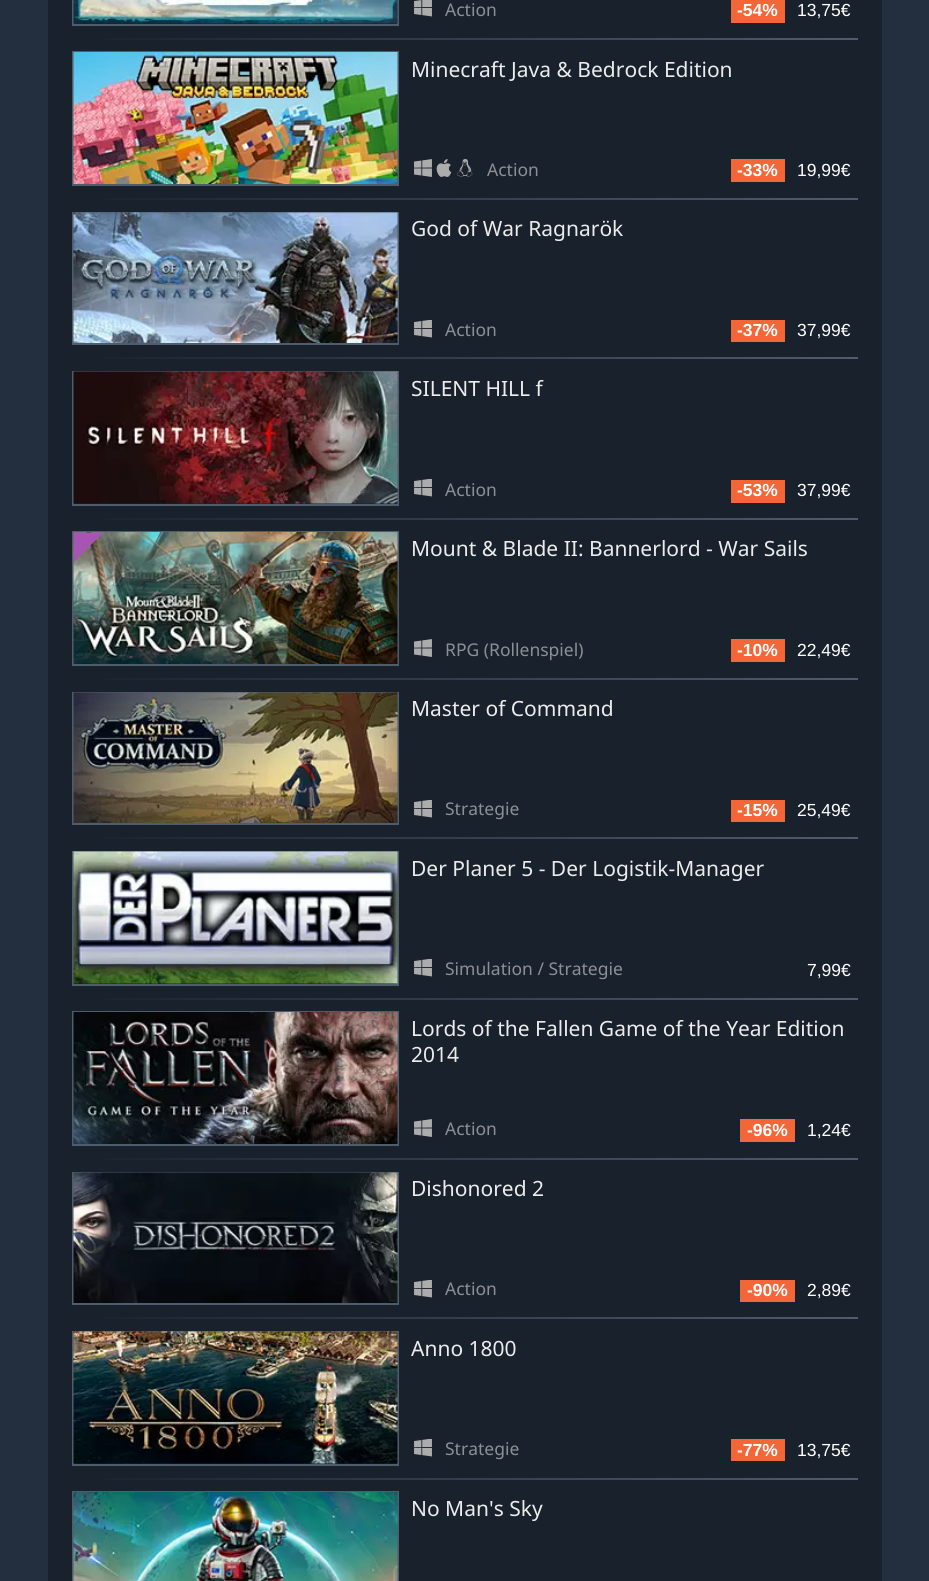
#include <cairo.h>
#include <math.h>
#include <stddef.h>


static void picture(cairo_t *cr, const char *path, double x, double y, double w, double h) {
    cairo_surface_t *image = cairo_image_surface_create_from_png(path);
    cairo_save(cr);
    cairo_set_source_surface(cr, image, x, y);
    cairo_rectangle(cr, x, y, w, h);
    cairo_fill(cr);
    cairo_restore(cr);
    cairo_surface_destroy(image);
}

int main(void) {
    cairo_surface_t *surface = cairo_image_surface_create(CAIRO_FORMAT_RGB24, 929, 1581);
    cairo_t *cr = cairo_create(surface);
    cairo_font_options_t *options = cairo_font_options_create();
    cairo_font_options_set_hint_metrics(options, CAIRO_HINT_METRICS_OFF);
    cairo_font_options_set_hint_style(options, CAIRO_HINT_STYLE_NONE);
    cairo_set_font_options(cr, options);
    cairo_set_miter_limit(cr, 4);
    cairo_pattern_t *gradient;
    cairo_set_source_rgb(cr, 0.137, 0.184, 0.243);
    cairo_paint(cr);
    cairo_set_source_rgb(cr, 0.098, 0.129, 0.173);
    cairo_rectangle(cr, 48, 0, 834, 1581);
    cairo_fill(cr);
    cairo_rectangle(cr, 73, -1, 325, 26);
    cairo_set_source_rgb(cr, 0.306, 0.365, 0.424);
    cairo_stroke(cr);
    picture(cr, "img1.png", 73, 0, 325, 24);
    picture(cr, "img2.png", 414, 0, 18, 17);
    cairo_select_font_face(cr, "Noto Sans", CAIRO_FONT_SLANT_NORMAL, CAIRO_FONT_WEIGHT_NORMAL);
    cairo_set_font_size(cr, 17.5);
    cairo_set_source_rgb(cr, 0.549, 0.565, 0.588);
    cairo_move_to(cr, 445, 16);
    cairo_show_text(cr, "Action");
    cairo_set_source_rgb(cr, 0.949, 0.4, 0.22);
    cairo_rectangle(cr, 731, 0, 54, 23);
    cairo_fill(cr);
    cairo_select_font_face(cr, "Liberation Sans", CAIRO_FONT_SLANT_NORMAL, CAIRO_FONT_WEIGHT_BOLD);
    cairo_set_source_rgb(cr, 1, 1, 1);
    cairo_move_to(cr, 737, 16);
    cairo_show_text(cr, "-54%");
    cairo_select_font_face(cr, "Liberation Sans", CAIRO_FONT_SLANT_NORMAL, CAIRO_FONT_WEIGHT_NORMAL);
    cairo_move_to(cr, 797, 16);
    cairo_show_text(cr, "13,75€");
    gradient = cairo_pattern_create_linear(858, 38, 72, 38);
    cairo_pattern_add_color_stop_rgba(gradient, 0, 0.306, 0.365, 0.424, 1);
    cairo_pattern_add_color_stop_rgba(gradient, 1, 0.098, 0.129, 0.173, 1);
    cairo_set_source(cr, gradient);
    cairo_pattern_destroy(gradient);
    cairo_rectangle(cr, 103, 38, 755, 2);
    cairo_fill(cr);
    cairo_rectangle(cr, 73, 52, 325, 133);
    cairo_set_source_rgb(cr, 0.306, 0.365, 0.424);
    cairo_stroke(cr);
    picture(cr, "img3.png", 73, 52, 325, 132);
    cairo_select_font_face(cr, "Noto Sans", CAIRO_FONT_SLANT_NORMAL, CAIRO_FONT_WEIGHT_NORMAL);
    cairo_set_font_size(cr, 21);
    cairo_set_source_rgb(cr, 0.922, 0.922, 0.922);
    cairo_move_to(cr, 411, 77);
    cairo_show_text(cr, "Minecraft Java & Bedrock Edition");
    picture(cr, "img4.png", 414, 159, 18, 18);
    picture(cr, "img5.png", 436, 159, 16, 18);
    picture(cr, "img6.png", 457, 159, 16, 18);
    cairo_set_font_size(cr, 17.5);
    cairo_set_source_rgb(cr, 0.549, 0.565, 0.588);
    cairo_move_to(cr, 487, 176);
    cairo_show_text(cr, "Action");
    cairo_set_source_rgb(cr, 0.949, 0.4, 0.22);
    cairo_rectangle(cr, 731, 159, 54, 23);
    cairo_fill(cr);
    cairo_select_font_face(cr, "Liberation Sans", CAIRO_FONT_SLANT_NORMAL, CAIRO_FONT_WEIGHT_BOLD);
    cairo_set_source_rgb(cr, 1, 1, 1);
    cairo_move_to(cr, 737, 176);
    cairo_show_text(cr, "-33%");
    cairo_select_font_face(cr, "Liberation Sans", CAIRO_FONT_SLANT_NORMAL, CAIRO_FONT_WEIGHT_NORMAL);
    cairo_move_to(cr, 797, 176);
    cairo_show_text(cr, "19,99€");
    gradient = cairo_pattern_create_linear(858, 199, 72, 199);
    cairo_pattern_add_color_stop_rgba(gradient, 0, 0.306, 0.365, 0.424, 1);
    cairo_pattern_add_color_stop_rgba(gradient, 1, 0.098, 0.129, 0.173, 1);
    cairo_set_source(cr, gradient);
    cairo_pattern_destroy(gradient);
    cairo_rectangle(cr, 103, 198, 755, 2);
    cairo_fill(cr);
    cairo_rectangle(cr, 73, 213, 325, 131);
    cairo_set_source_rgb(cr, 0.306, 0.365, 0.424);
    cairo_stroke(cr);
    picture(cr, "img7.png", 73, 212, 325, 131);
    cairo_select_font_face(cr, "Noto Sans", CAIRO_FONT_SLANT_NORMAL, CAIRO_FONT_WEIGHT_NORMAL);
    cairo_set_font_size(cr, 21);
    cairo_set_source_rgb(cr, 0.922, 0.922, 0.922);
    cairo_move_to(cr, 411, 236);
    cairo_show_text(cr, "God of War Ragnarök");
    picture(cr, "img8.png", 414, 320, 18, 18);
    cairo_set_font_size(cr, 17.5);
    cairo_set_source_rgb(cr, 0.549, 0.565, 0.588);
    cairo_move_to(cr, 445, 336);
    cairo_show_text(cr, "Action");
    cairo_set_source_rgb(cr, 0.949, 0.4, 0.22);
    cairo_rectangle(cr, 731, 320, 54, 22);
    cairo_fill(cr);
    cairo_select_font_face(cr, "Liberation Sans", CAIRO_FONT_SLANT_NORMAL, CAIRO_FONT_WEIGHT_BOLD);
    cairo_set_source_rgb(cr, 1, 1, 1);
    cairo_move_to(cr, 737, 336);
    cairo_show_text(cr, "-37%");
    cairo_select_font_face(cr, "Liberation Sans", CAIRO_FONT_SLANT_NORMAL, CAIRO_FONT_WEIGHT_NORMAL);
    cairo_move_to(cr, 797, 336);
    cairo_show_text(cr, "37,99€");
    gradient = cairo_pattern_create_linear(858, 358, 72, 358);
    cairo_pattern_add_color_stop_rgba(gradient, 0, 0.306, 0.365, 0.424, 1);
    cairo_pattern_add_color_stop_rgba(gradient, 1, 0.098, 0.129, 0.173, 1);
    cairo_set_source(cr, gradient);
    cairo_pattern_destroy(gradient);
    cairo_rectangle(cr, 103, 357, 755, 2);
    cairo_fill(cr);
    cairo_rectangle(cr, 73, 372, 325, 133);
    cairo_set_source_rgb(cr, 0.306, 0.365, 0.424);
    cairo_stroke(cr);
    picture(cr, "img9.png", 73, 371, 325, 133);
    cairo_select_font_face(cr, "Noto Sans", CAIRO_FONT_SLANT_NORMAL, CAIRO_FONT_WEIGHT_NORMAL);
    cairo_set_font_size(cr, 21);
    cairo_set_source_rgb(cr, 0.922, 0.922, 0.922);
    cairo_move_to(cr, 411, 396);
    cairo_show_text(cr, "SILENT HILL f");
    picture(cr, "img8.png", 414, 479, 18, 18);
    cairo_set_font_size(cr, 17.5);
    cairo_set_source_rgb(cr, 0.549, 0.565, 0.588);
    cairo_move_to(cr, 445, 496);
    cairo_show_text(cr, "Action");
    cairo_set_source_rgb(cr, 0.949, 0.4, 0.22);
    cairo_rectangle(cr, 731, 480, 54, 23);
    cairo_fill(cr);
    cairo_select_font_face(cr, "Liberation Sans", CAIRO_FONT_SLANT_NORMAL, CAIRO_FONT_WEIGHT_BOLD);
    cairo_set_source_rgb(cr, 1, 1, 1);
    cairo_move_to(cr, 737, 496);
    cairo_show_text(cr, "-53%");
    cairo_select_font_face(cr, "Liberation Sans", CAIRO_FONT_SLANT_NORMAL, CAIRO_FONT_WEIGHT_NORMAL);
    cairo_move_to(cr, 797, 496);
    cairo_show_text(cr, "37,99€");
    gradient = cairo_pattern_create_linear(858, 518, 72, 518);
    cairo_pattern_add_color_stop_rgba(gradient, 0, 0.306, 0.365, 0.424, 1);
    cairo_pattern_add_color_stop_rgba(gradient, 1, 0.098, 0.129, 0.173, 1);
    cairo_set_source(cr, gradient);
    cairo_pattern_destroy(gradient);
    cairo_rectangle(cr, 103, 518, 755, 2);
    cairo_fill(cr);
    cairo_rectangle(cr, 73, 532, 325, 133);
    cairo_set_source_rgb(cr, 0.306, 0.365, 0.424);
    cairo_stroke(cr);
    picture(cr, "img10.png", 73, 532, 325, 132);
    cairo_set_source_rgb(cr, 0.651, 0.333, 0.698);
    cairo_new_path(cr);
    cairo_move_to(cr, 103.5, 532.5);
    cairo_line_to(cr, 73.5, 562);
    cairo_line_to(cr, 73.5, 532.5);
    cairo_close_path(cr);
    cairo_fill(cr);
    cairo_select_font_face(cr, "Noto Sans", CAIRO_FONT_SLANT_NORMAL, CAIRO_FONT_WEIGHT_NORMAL);
    cairo_set_font_size(cr, 21);
    cairo_set_source_rgb(cr, 0.922, 0.922, 0.922);
    cairo_move_to(cr, 411, 556);
    cairo_show_text(cr, "Mount & Blade II: Bannerlord - War Sails");
    picture(cr, "img4.png", 414, 639, 18, 18);
    cairo_set_font_size(cr, 17.5);
    cairo_set_source_rgb(cr, 0.549, 0.565, 0.588);
    cairo_move_to(cr, 445, 656);
    cairo_show_text(cr, "RPG (Rollenspiel)");
    cairo_set_source_rgb(cr, 0.949, 0.4, 0.22);
    cairo_rectangle(cr, 731, 639, 54, 23);
    cairo_fill(cr);
    cairo_select_font_face(cr, "Liberation Sans", CAIRO_FONT_SLANT_NORMAL, CAIRO_FONT_WEIGHT_BOLD);
    cairo_set_source_rgb(cr, 1, 1, 1);
    cairo_move_to(cr, 737, 656);
    cairo_show_text(cr, "-10%");
    cairo_select_font_face(cr, "Liberation Sans", CAIRO_FONT_SLANT_NORMAL, CAIRO_FONT_WEIGHT_NORMAL);
    cairo_move_to(cr, 797, 656);
    cairo_show_text(cr, "22,49€");
    gradient = cairo_pattern_create_linear(858, 679, 72, 679);
    cairo_pattern_add_color_stop_rgba(gradient, 0, 0.306, 0.365, 0.424, 1);
    cairo_pattern_add_color_stop_rgba(gradient, 1, 0.098, 0.129, 0.173, 1);
    cairo_set_source(cr, gradient);
    cairo_pattern_destroy(gradient);
    cairo_rectangle(cr, 103, 678, 755, 2);
    cairo_fill(cr);
    cairo_rectangle(cr, 73, 693, 325, 131);
    cairo_set_source_rgb(cr, 0.306, 0.365, 0.424);
    cairo_stroke(cr);
    picture(cr, "img11.png", 73, 692, 325, 131);
    cairo_select_font_face(cr, "Noto Sans", CAIRO_FONT_SLANT_NORMAL, CAIRO_FONT_WEIGHT_NORMAL);
    cairo_set_font_size(cr, 21);
    cairo_set_source_rgb(cr, 0.922, 0.922, 0.922);
    cairo_move_to(cr, 411, 716);
    cairo_show_text(cr, "Master of Command");
    picture(cr, "img8.png", 414, 800, 18, 18);
    cairo_set_font_size(cr, 17.5);
    cairo_set_source_rgb(cr, 0.549, 0.565, 0.588);
    cairo_move_to(cr, 445, 815);
    cairo_show_text(cr, "Strategie");
    cairo_set_source_rgb(cr, 0.949, 0.4, 0.22);
    cairo_rectangle(cr, 731, 800, 54, 22);
    cairo_fill(cr);
    cairo_select_font_face(cr, "Liberation Sans", CAIRO_FONT_SLANT_NORMAL, CAIRO_FONT_WEIGHT_BOLD);
    cairo_set_source_rgb(cr, 1, 1, 1);
    cairo_move_to(cr, 737, 816);
    cairo_show_text(cr, "-15%");
    cairo_select_font_face(cr, "Liberation Sans", CAIRO_FONT_SLANT_NORMAL, CAIRO_FONT_WEIGHT_NORMAL);
    cairo_move_to(cr, 797, 816);
    cairo_show_text(cr, "25,49€");
    gradient = cairo_pattern_create_linear(858, 838, 72, 838);
    cairo_pattern_add_color_stop_rgba(gradient, 0, 0.306, 0.365, 0.424, 1);
    cairo_pattern_add_color_stop_rgba(gradient, 1, 0.098, 0.129, 0.173, 1);
    cairo_set_source(cr, gradient);
    cairo_pattern_destroy(gradient);
    cairo_rectangle(cr, 103, 837, 755, 2);
    cairo_fill(cr);
    cairo_rectangle(cr, 73, 852, 325, 133);
    cairo_set_source_rgb(cr, 0.306, 0.365, 0.424);
    cairo_stroke(cr);
    picture(cr, "img12.png", 73, 851, 325, 133);
    cairo_select_font_face(cr, "Noto Sans", CAIRO_FONT_SLANT_NORMAL, CAIRO_FONT_WEIGHT_NORMAL);
    cairo_set_font_size(cr, 21);
    cairo_set_source_rgb(cr, 0.922, 0.922, 0.922);
    cairo_move_to(cr, 411, 876);
    cairo_show_text(cr, "Der Planer 5 - Der Logistik-Manager");
    picture(cr, "img8.png", 414, 959, 18, 18);
    cairo_set_font_size(cr, 17.5);
    cairo_set_source_rgb(cr, 0.549, 0.565, 0.588);
    cairo_move_to(cr, 445, 975);
    cairo_show_text(cr, "Simulation / Strategie");
    cairo_select_font_face(cr, "Liberation Sans", CAIRO_FONT_SLANT_NORMAL, CAIRO_FONT_WEIGHT_NORMAL);
    cairo_set_source_rgb(cr, 1, 1, 1);
    cairo_move_to(cr, 807, 976);
    cairo_show_text(cr, "7,99€");
    gradient = cairo_pattern_create_linear(858, 998, 72, 998);
    cairo_pattern_add_color_stop_rgba(gradient, 0, 0.306, 0.365, 0.424, 1);
    cairo_pattern_add_color_stop_rgba(gradient, 1, 0.098, 0.129, 0.173, 1);
    cairo_set_source(cr, gradient);
    cairo_pattern_destroy(gradient);
    cairo_rectangle(cr, 103, 998, 755, 2);
    cairo_fill(cr);
    cairo_rectangle(cr, 73, 1012, 325, 133);
    cairo_set_source_rgb(cr, 0.306, 0.365, 0.424);
    cairo_stroke(cr);
    picture(cr, "img13.png", 73, 1012, 325, 132);
    cairo_select_font_face(cr, "Noto Sans", CAIRO_FONT_SLANT_NORMAL, CAIRO_FONT_WEIGHT_NORMAL);
    cairo_set_font_size(cr, 21);
    cairo_set_source_rgb(cr, 0.922, 0.922, 0.922);
    cairo_move_to(cr, 411, 1036);
    cairo_show_text(cr, "Lords of the Fallen Game of the Year Edition");
    cairo_move_to(cr, 411, 1062);
    cairo_show_text(cr, "2014");
    picture(cr, "img4.png", 414, 1119, 18, 18);
    cairo_set_font_size(cr, 17.5);
    cairo_set_source_rgb(cr, 0.549, 0.565, 0.588);
    cairo_move_to(cr, 445, 1135);
    cairo_show_text(cr, "Action");
    cairo_set_source_rgb(cr, 0.949, 0.4, 0.22);
    cairo_rectangle(cr, 740, 1119, 55, 23);
    cairo_fill(cr);
    cairo_select_font_face(cr, "Liberation Sans", CAIRO_FONT_SLANT_NORMAL, CAIRO_FONT_WEIGHT_BOLD);
    cairo_set_source_rgb(cr, 1, 1, 1);
    cairo_move_to(cr, 747, 1136);
    cairo_show_text(cr, "-96%");
    cairo_select_font_face(cr, "Liberation Sans", CAIRO_FONT_SLANT_NORMAL, CAIRO_FONT_WEIGHT_NORMAL);
    cairo_move_to(cr, 807, 1136);
    cairo_show_text(cr, "1,24€");
    gradient = cairo_pattern_create_linear(858, 1159, 72, 1159);
    cairo_pattern_add_color_stop_rgba(gradient, 0, 0.306, 0.365, 0.424, 1);
    cairo_pattern_add_color_stop_rgba(gradient, 1, 0.098, 0.129, 0.173, 1);
    cairo_set_source(cr, gradient);
    cairo_pattern_destroy(gradient);
    cairo_rectangle(cr, 103, 1158, 755, 2);
    cairo_fill(cr);
    cairo_rectangle(cr, 73, 1173, 325, 131);
    cairo_set_source_rgb(cr, 0.306, 0.365, 0.424);
    cairo_stroke(cr);
    picture(cr, "img14.png", 73, 1172, 325, 131);
    cairo_select_font_face(cr, "Noto Sans", CAIRO_FONT_SLANT_NORMAL, CAIRO_FONT_WEIGHT_NORMAL);
    cairo_set_font_size(cr, 21);
    cairo_set_source_rgb(cr, 0.922, 0.922, 0.922);
    cairo_move_to(cr, 411, 1196);
    cairo_show_text(cr, "Dishonored 2");
    picture(cr, "img8.png", 414, 1280, 18, 18);
    cairo_set_font_size(cr, 17.5);
    cairo_set_source_rgb(cr, 0.549, 0.565, 0.588);
    cairo_move_to(cr, 445, 1295);
    cairo_show_text(cr, "Action");
    cairo_set_source_rgb(cr, 0.949, 0.4, 0.22);
    cairo_rectangle(cr, 740, 1280, 55, 22);
    cairo_fill(cr);
    cairo_select_font_face(cr, "Liberation Sans", CAIRO_FONT_SLANT_NORMAL, CAIRO_FONT_WEIGHT_BOLD);
    cairo_set_source_rgb(cr, 1, 1, 1);
    cairo_move_to(cr, 747, 1296);
    cairo_show_text(cr, "-90%");
    cairo_select_font_face(cr, "Liberation Sans", CAIRO_FONT_SLANT_NORMAL, CAIRO_FONT_WEIGHT_NORMAL);
    cairo_move_to(cr, 807, 1296);
    cairo_show_text(cr, "2,89€");
    gradient = cairo_pattern_create_linear(858, 1318, 72, 1318);
    cairo_pattern_add_color_stop_rgba(gradient, 0, 0.306, 0.365, 0.424, 1);
    cairo_pattern_add_color_stop_rgba(gradient, 1, 0.098, 0.129, 0.173, 1);
    cairo_set_source(cr, gradient);
    cairo_pattern_destroy(gradient);
    cairo_rectangle(cr, 103, 1317, 755, 2);
    cairo_fill(cr);
    cairo_rectangle(cr, 73, 1332, 325, 133);
    cairo_set_source_rgb(cr, 0.306, 0.365, 0.424);
    cairo_stroke(cr);
    picture(cr, "img15.png", 73, 1331, 325, 133);
    cairo_select_font_face(cr, "Noto Sans", CAIRO_FONT_SLANT_NORMAL, CAIRO_FONT_WEIGHT_NORMAL);
    cairo_set_font_size(cr, 21);
    cairo_set_source_rgb(cr, 0.922, 0.922, 0.922);
    cairo_move_to(cr, 411, 1356);
    cairo_show_text(cr, "Anno 1800");
    picture(cr, "img8.png", 414, 1439, 18, 18);
    cairo_set_font_size(cr, 17.5);
    cairo_set_source_rgb(cr, 0.549, 0.565, 0.588);
    cairo_move_to(cr, 445, 1455);
    cairo_show_text(cr, "Strategie");
    cairo_set_source_rgb(cr, 0.949, 0.4, 0.22);
    cairo_rectangle(cr, 731, 1439, 54, 22);
    cairo_fill(cr);
    cairo_select_font_face(cr, "Liberation Sans", CAIRO_FONT_SLANT_NORMAL, CAIRO_FONT_WEIGHT_BOLD);
    cairo_set_source_rgb(cr, 1, 1, 1);
    cairo_move_to(cr, 737, 1456);
    cairo_show_text(cr, "-77%");
    cairo_select_font_face(cr, "Liberation Sans", CAIRO_FONT_SLANT_NORMAL, CAIRO_FONT_WEIGHT_NORMAL);
    cairo_move_to(cr, 797, 1456);
    cairo_show_text(cr, "13,75€");
    gradient = cairo_pattern_create_linear(858, 1478, 72, 1478);
    cairo_pattern_add_color_stop_rgba(gradient, 0, 0.306, 0.365, 0.424, 1);
    cairo_pattern_add_color_stop_rgba(gradient, 1, 0.098, 0.129, 0.173, 1);
    cairo_set_source(cr, gradient);
    cairo_pattern_destroy(gradient);
    cairo_rectangle(cr, 103, 1478, 755, 2);
    cairo_fill(cr);
    cairo_rectangle(cr, 73, 1492, 325, 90);
    cairo_set_source_rgb(cr, 0.306, 0.365, 0.424);
    cairo_stroke(cr);
    picture(cr, "img16.png", 73, 1492, 325, 89);
    cairo_select_font_face(cr, "Noto Sans", CAIRO_FONT_SLANT_NORMAL, CAIRO_FONT_WEIGHT_NORMAL);
    cairo_set_font_size(cr, 21);
    cairo_set_source_rgb(cr, 0.922, 0.922, 0.922);
    cairo_move_to(cr, 411, 1516);
    cairo_show_text(cr, "No Man's Sky");
    cairo_surface_write_to_png(surface, "page.png");
    cairo_font_options_destroy(options);
    cairo_destroy(cr);
    cairo_surface_destroy(surface);
    return 0;
}
